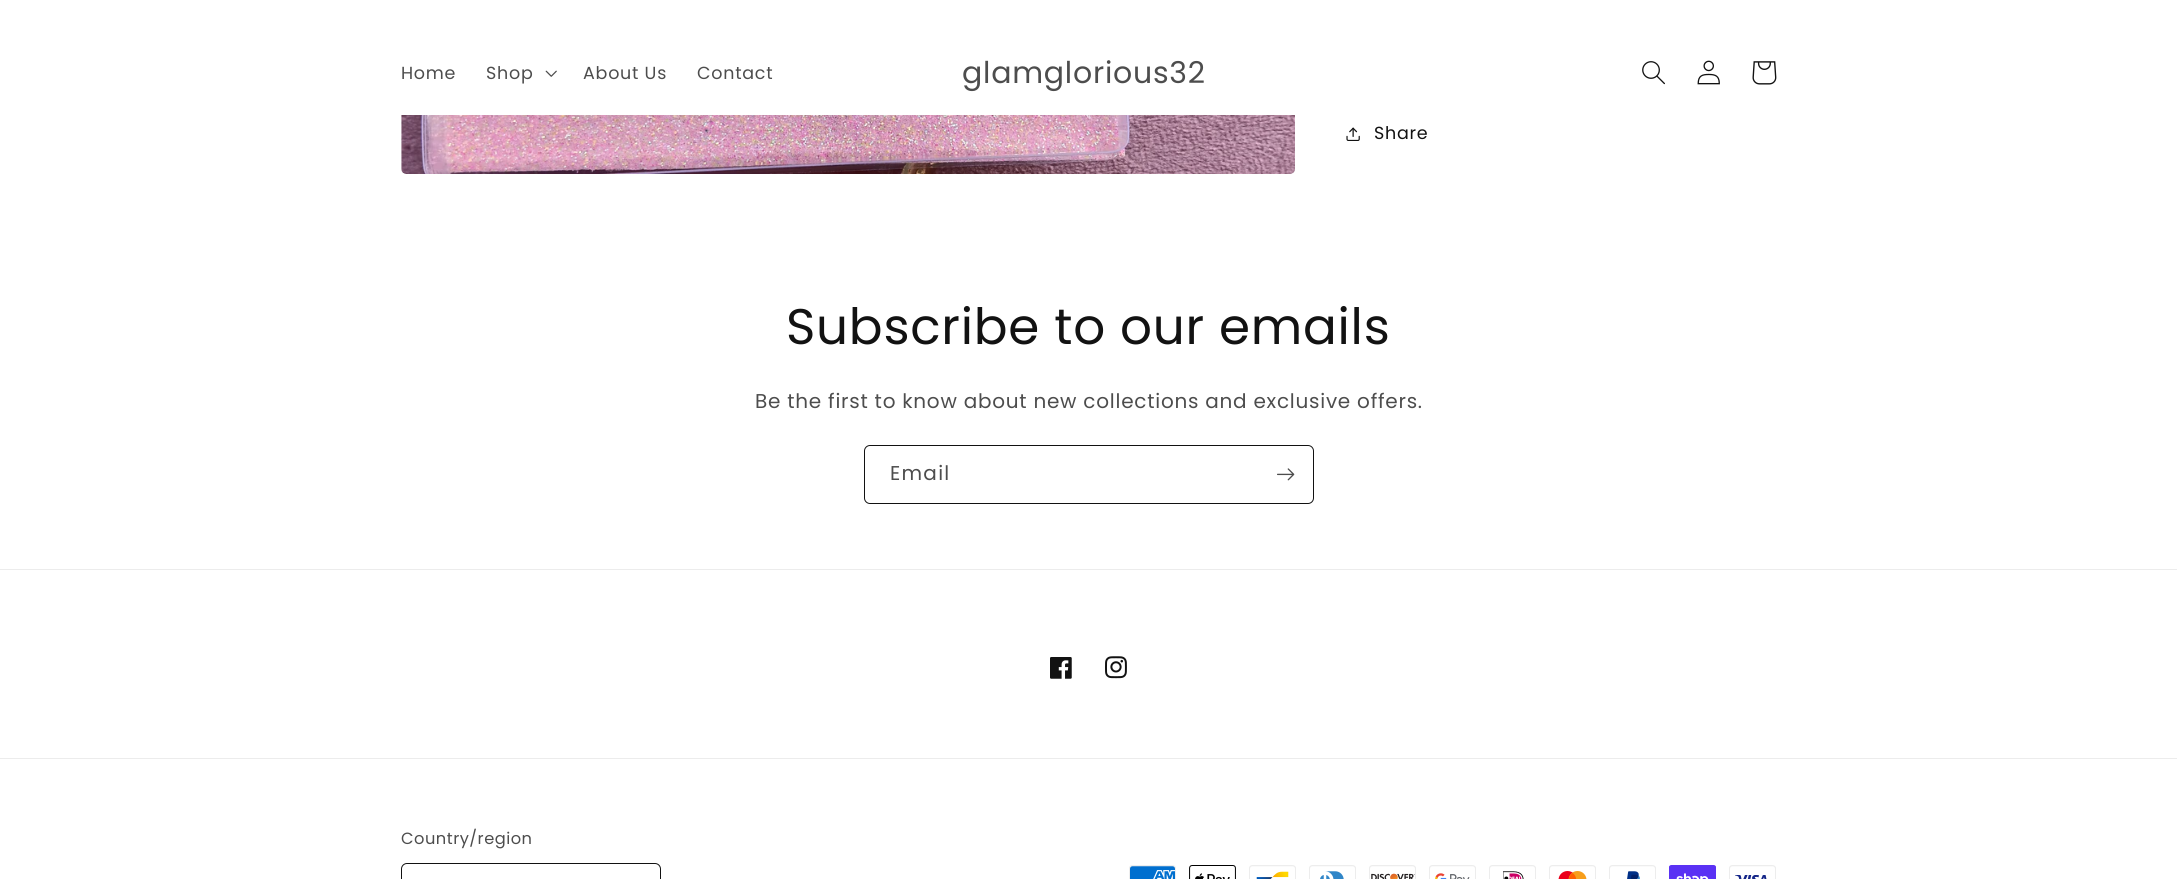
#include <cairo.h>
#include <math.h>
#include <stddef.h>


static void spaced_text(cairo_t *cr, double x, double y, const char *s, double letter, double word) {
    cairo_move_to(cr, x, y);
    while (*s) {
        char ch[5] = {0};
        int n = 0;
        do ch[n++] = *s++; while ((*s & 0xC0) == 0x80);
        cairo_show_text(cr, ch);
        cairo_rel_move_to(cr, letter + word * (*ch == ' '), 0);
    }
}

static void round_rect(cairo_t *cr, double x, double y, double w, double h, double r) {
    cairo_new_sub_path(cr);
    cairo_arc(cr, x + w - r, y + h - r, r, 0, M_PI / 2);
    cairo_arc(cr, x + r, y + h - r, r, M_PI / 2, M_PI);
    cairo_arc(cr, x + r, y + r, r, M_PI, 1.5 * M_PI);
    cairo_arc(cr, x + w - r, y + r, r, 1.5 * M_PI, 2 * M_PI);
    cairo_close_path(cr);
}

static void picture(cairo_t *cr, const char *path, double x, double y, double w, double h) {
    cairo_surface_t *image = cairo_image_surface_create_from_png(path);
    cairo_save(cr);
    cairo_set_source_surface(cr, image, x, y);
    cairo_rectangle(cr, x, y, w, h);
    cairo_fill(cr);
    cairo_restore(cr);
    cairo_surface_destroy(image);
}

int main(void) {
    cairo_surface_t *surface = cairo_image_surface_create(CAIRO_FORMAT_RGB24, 2177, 879);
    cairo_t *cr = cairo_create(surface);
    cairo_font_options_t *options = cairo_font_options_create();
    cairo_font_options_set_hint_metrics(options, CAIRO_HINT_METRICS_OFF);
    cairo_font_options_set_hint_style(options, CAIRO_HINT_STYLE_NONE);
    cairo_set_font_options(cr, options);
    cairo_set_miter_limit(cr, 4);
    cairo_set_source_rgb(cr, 1, 1, 1);
    cairo_paint(cr);
    cairo_select_font_face(cr, "Poppins", CAIRO_FONT_SLANT_NORMAL, CAIRO_FONT_WEIGHT_NORMAL);
    cairo_set_font_size(cr, 17.5);
    cairo_set_source_rgb(cr, 0.302, 0.302, 0.302);
    spaced_text(cr, 401, 79, "Home", 0.75, 0);
    spaced_text(cr, 486, 79, "Shop", 0.75, 0);
    picture(cr, "img1.png", 545, 70, 12, 7);
    spaced_text(cr, 583, 79, "About Us", 0.75, 0);
    spaced_text(cr, 697, 79, "Contact", 0.75, 0);
    cairo_set_font_size(cr, 30);
    spaced_text(cr, 962, 83, "glamglorious32", 0.75, 0);
    picture(cr, "img2.png", 1642, 61, 23, 24);
    picture(cr, "img3.png", 1697, 60, 23, 25);
    picture(cr, "img4.png", 1752, 61, 25, 24);
    picture(cr, "img5.png", 401, 115, 894, 59);
    picture(cr, "img6.png", 1346, 127, 14, 14);
    cairo_set_font_size(cr, 17.5);
    cairo_set_source_rgb(cr, 0.071, 0.071, 0.071);
    spaced_text(cr, 1374, 139, "Share", 0.75, 0);
    cairo_set_font_size(cr, 50);
    spaced_text(cr, 786, 344, "Subscribe to our emails", 0.75, 0);
    cairo_set_font_size(cr, 20);
    cairo_set_source_rgb(cr, 0.302, 0.302, 0.302);
    spaced_text(cr, 755, 408, "Be the first to know about new collections and exclusive offers.", 0.75, 0);
    round_rect(cr, 864.5, 445.5, 449, 58, 5.5);
    cairo_set_source_rgb(cr, 0.071, 0.071, 0.071);
    cairo_set_line_width(cr, 1);
    cairo_stroke(cr);
    cairo_set_source_rgb(cr, 0.302, 0.302, 0.302);
    spaced_text(cr, 890, 480, "Email", 1.25, 0);
    picture(cr, "img7.png", 1277, 468, 18, 13);
    cairo_set_source_rgb(cr, 0.925, 0.925, 0.925);
    cairo_rectangle(cr, 0, 569, 2177, 1);
    cairo_fill(cr);
    picture(cr, "img8.png", 1050, 657, 22, 22);
    picture(cr, "img9.png", 1105, 656, 22, 23);
    cairo_rectangle(cr, 0, 758, 2177, 1);
    cairo_fill(cr);
    cairo_set_font_size(cr, 16.25);
    cairo_set_source_rgb(cr, 0.302, 0.302, 0.302);
    spaced_text(cr, 401, 844, "Country/region", 0.5, 0);
    round_rect(cr, 401.5, 863.5, 259, 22, 5.5);
    cairo_set_source_rgb(cr, 0.071, 0.071, 0.071);
    cairo_stroke(cr);
    picture(cr, "img10.png", 1129, 865, 47, 14);
    picture(cr, "img11.png", 1189, 865, 47, 14);
    picture(cr, "img12.png", 1249, 865, 47, 14);
    picture(cr, "img13.png", 1309, 865, 47, 14);
    picture(cr, "img14.png", 1369, 865, 47, 14);
    picture(cr, "img15.png", 1429, 865, 47, 14);
    picture(cr, "img16.png", 1489, 865, 47, 14);
    picture(cr, "img17.png", 1549, 865, 47, 14);
    picture(cr, "img18.png", 1609, 865, 47, 14);
    picture(cr, "img19.png", 1669, 865, 47, 14);
    picture(cr, "img20.png", 1729, 865, 47, 14);
    cairo_surface_write_to_png(surface, "page.png");
    cairo_font_options_destroy(options);
    cairo_destroy(cr);
    cairo_surface_destroy(surface);
    return 0;
}
